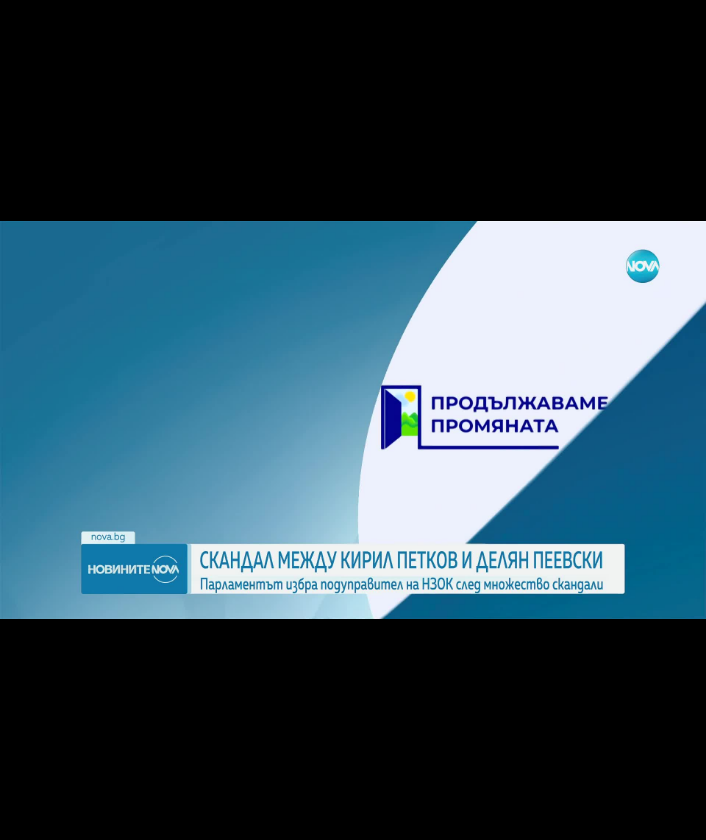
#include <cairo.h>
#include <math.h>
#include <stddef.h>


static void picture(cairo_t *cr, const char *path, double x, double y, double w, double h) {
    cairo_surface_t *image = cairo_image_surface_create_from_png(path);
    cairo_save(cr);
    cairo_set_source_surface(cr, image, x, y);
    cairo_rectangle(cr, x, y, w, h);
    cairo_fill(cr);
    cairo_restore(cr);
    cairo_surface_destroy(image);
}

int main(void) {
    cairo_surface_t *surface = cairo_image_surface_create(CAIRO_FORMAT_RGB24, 706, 840);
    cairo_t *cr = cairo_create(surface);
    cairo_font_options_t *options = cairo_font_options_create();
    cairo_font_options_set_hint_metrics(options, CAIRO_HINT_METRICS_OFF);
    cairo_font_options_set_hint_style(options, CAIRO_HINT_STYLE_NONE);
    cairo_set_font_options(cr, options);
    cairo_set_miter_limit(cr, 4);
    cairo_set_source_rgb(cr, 0, 0, 0);
    cairo_paint(cr);
    picture(cr, "img1.png", 0, 221, 706, 398);
    cairo_surface_write_to_png(surface, "page.png");
    cairo_font_options_destroy(options);
    cairo_destroy(cr);
    cairo_surface_destroy(surface);
    return 0;
}
